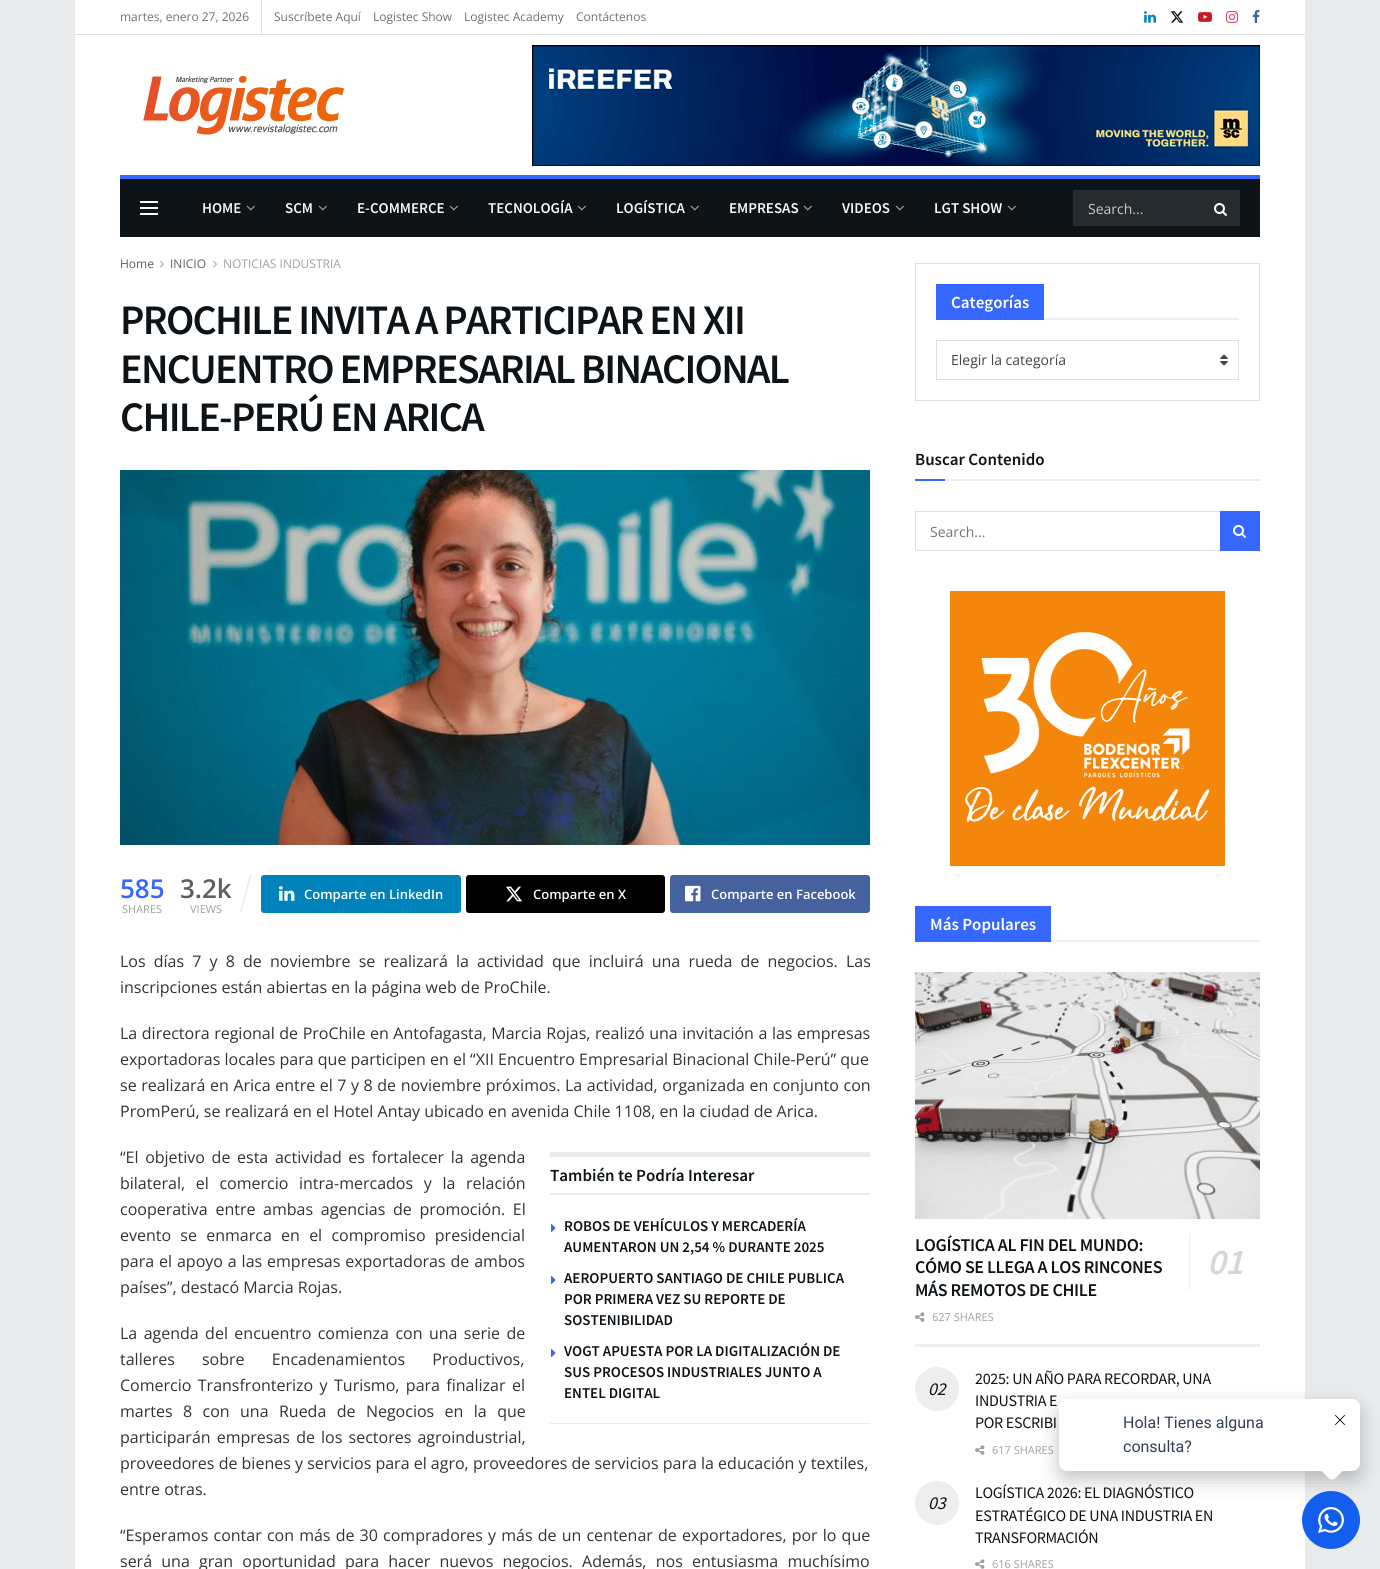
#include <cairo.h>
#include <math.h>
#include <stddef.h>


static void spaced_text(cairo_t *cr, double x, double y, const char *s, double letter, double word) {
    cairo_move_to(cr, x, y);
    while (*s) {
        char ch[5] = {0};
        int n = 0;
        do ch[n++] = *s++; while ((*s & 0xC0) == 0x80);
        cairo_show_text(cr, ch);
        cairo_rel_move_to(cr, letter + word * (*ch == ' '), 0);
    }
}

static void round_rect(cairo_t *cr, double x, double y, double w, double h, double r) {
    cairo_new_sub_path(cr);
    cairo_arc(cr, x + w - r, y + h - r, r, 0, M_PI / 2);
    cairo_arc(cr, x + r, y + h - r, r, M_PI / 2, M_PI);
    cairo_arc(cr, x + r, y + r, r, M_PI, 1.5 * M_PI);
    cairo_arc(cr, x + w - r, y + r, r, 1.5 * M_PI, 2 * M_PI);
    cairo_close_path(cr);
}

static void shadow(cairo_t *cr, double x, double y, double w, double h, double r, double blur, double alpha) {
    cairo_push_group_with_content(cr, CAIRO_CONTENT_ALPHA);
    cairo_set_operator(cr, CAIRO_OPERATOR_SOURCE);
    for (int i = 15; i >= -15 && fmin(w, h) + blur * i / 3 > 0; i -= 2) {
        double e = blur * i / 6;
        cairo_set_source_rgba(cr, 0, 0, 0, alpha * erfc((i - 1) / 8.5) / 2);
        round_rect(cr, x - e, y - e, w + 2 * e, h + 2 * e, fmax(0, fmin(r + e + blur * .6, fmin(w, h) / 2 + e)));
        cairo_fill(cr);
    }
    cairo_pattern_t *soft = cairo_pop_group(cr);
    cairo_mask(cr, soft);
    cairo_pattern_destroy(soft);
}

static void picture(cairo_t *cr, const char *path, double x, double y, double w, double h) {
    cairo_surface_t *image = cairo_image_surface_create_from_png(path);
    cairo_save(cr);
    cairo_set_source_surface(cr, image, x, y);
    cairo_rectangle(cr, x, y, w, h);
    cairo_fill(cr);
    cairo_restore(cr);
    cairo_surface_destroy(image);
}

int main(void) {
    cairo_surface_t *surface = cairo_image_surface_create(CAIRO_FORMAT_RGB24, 1380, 1569);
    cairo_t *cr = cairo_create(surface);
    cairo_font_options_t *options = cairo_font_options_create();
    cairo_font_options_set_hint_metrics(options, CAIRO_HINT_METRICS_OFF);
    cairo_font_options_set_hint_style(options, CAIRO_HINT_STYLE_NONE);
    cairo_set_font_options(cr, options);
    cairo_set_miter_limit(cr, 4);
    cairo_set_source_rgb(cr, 0.914, 0.918, 0.929);
    cairo_paint(cr);
    cairo_set_source_rgb(cr, 1, 1, 1);
    cairo_rectangle(cr, 75, 0, 1230, 34);
    cairo_fill(cr);
    cairo_set_source_rgb(cr, 0.878, 0.878, 0.878);
    cairo_rectangle(cr, 75, 34, 1230, 1);
    cairo_fill(cr);
    cairo_rectangle(cr, 261, 0, 1, 34);
    cairo_fill(cr);
    cairo_select_font_face(cr, "Open Sans", CAIRO_FONT_SLANT_NORMAL, CAIRO_FONT_WEIGHT_NORMAL);
    cairo_set_font_size(cr, 12);
    cairo_set_source_rgb(cr, 0.427, 0.439, 0.451);
    cairo_move_to(cr, 120, 21);
    cairo_show_text(cr, "martes, enero 27, 2026");
    cairo_move_to(cr, 274, 21);
    cairo_show_text(cr, "Suscríbete Aquí");
    cairo_move_to(cr, 373, 21);
    cairo_show_text(cr, "Logistec Show");
    cairo_move_to(cr, 464, 21);
    cairo_show_text(cr, "Logistec Academy");
    cairo_move_to(cr, 576, 21);
    cairo_show_text(cr, "Contáctenos");
    picture(cr, "img1.png", 1144, 11, 12, 12);
    picture(cr, "img2.png", 1170, 11, 14, 12);
    picture(cr, "img3.png", 1198, 12, 14, 10);
    picture(cr, "img4.png", 1226, 11, 12, 12);
    picture(cr, "img5.png", 1252, 10, 8, 13);
    cairo_set_source_rgb(cr, 1, 1, 1);
    cairo_rectangle(cr, 75, 35, 1230, 1534);
    cairo_fill(cr);
    picture(cr, "img6.png", 143, 76, 201, 59);
    picture(cr, "img7.png", 532, 45, 728, 121);
    cairo_set_source_rgb(cr, 0.051, 0.075, 0.09);
    cairo_rectangle(cr, 120, 179, 1140, 58);
    cairo_fill(cr);
    cairo_set_source_rgb(cr, 0.212, 0.404, 1);
    cairo_rectangle(cr, 120, 175, 1140, 4);
    cairo_fill(cr);
    cairo_set_source_rgb(cr, 0.98, 0.98, 0.98);
    cairo_rectangle(cr, 140, 201, 18, 2);
    cairo_fill(cr);
    cairo_rectangle(cr, 140, 207, 18, 2);
    cairo_fill(cr);
    cairo_rectangle(cr, 140, 213, 18, 2);
    cairo_fill(cr);
    cairo_select_font_face(cr, "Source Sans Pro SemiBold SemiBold", CAIRO_FONT_SLANT_NORMAL, CAIRO_FONT_WEIGHT_NORMAL);
    cairo_set_font_size(cr, 15);
    cairo_set_source_rgb(cr, 0.961, 0.961, 0.961);
    cairo_move_to(cr, 202, 213);
    cairo_show_text(cr, "HOME");
    picture(cr, "img8.png", 246, 205, 9, 6);
    cairo_move_to(cr, 285, 213);
    cairo_show_text(cr, "SCM");
    picture(cr, "img8.png", 318, 205, 9, 6);
    cairo_move_to(cr, 357, 213);
    cairo_show_text(cr, "E-COMMERCE");
    picture(cr, "img8.png", 449, 205, 9, 6);
    cairo_move_to(cr, 488, 213);
    cairo_show_text(cr, "TECNOLOGÍA");
    picture(cr, "img8.png", 577, 205, 9, 6);
    cairo_move_to(cr, 616, 213);
    cairo_show_text(cr, "LOGÍSTICA");
    picture(cr, "img8.png", 690, 205, 9, 6);
    cairo_move_to(cr, 729, 213);
    cairo_show_text(cr, "EMPRESAS");
    picture(cr, "img8.png", 803, 205, 9, 6);
    cairo_move_to(cr, 842, 213);
    cairo_show_text(cr, "VIDEOS");
    picture(cr, "img8.png", 895, 205, 9, 6);
    cairo_move_to(cr, 934, 213);
    cairo_show_text(cr, "LGT SHOW");
    picture(cr, "img8.png", 1007, 205, 9, 6);
    cairo_set_source_rgb(cr, 0.145, 0.169, 0.18);
    cairo_rectangle(cr, 1073, 190, 167, 36);
    cairo_fill(cr);
    cairo_select_font_face(cr, "Open Sans", CAIRO_FONT_SLANT_NORMAL, CAIRO_FONT_WEIGHT_NORMAL);
    cairo_set_font_size(cr, 14);
    cairo_set_source_rgb(cr, 0.788, 0.792, 0.796);
    cairo_move_to(cr, 1088, 214);
    cairo_show_text(cr, "Search...");
    picture(cr, "img9.png", 1214, 203, 13, 13);
    cairo_set_font_size(cr, 12);
    cairo_set_source_rgb(cr, 0.357, 0.373, 0.384);
    cairo_move_to(cr, 120, 268);
    cairo_show_text(cr, "Home");
    picture(cr, "img10.png", 160, 260, 4, 8);
    cairo_move_to(cr, 170, 268);
    cairo_show_text(cr, "INICIO");
    picture(cr, "img10.png", 213, 260, 4, 8);
    cairo_set_source_rgb(cr, 0.627, 0.627, 0.627);
    cairo_move_to(cr, 223, 268);
    cairo_show_text(cr, "NOTICIAS INDUSTRIA");
    cairo_select_font_face(cr, "Source Sans Pro SemiBold SemiBold", CAIRO_FONT_SLANT_NORMAL, CAIRO_FONT_WEIGHT_NORMAL);
    cairo_set_font_size(cr, 42);
    cairo_set_source_rgb(cr, 0.051, 0.075, 0.09);
    spaced_text(cr, 120, 334, "PROCHILE INVITA A PARTICIPAR EN XII", -1.7, 0);
    spaced_text(cr, 120, 383, "ENCUENTRO EMPRESARIAL BINACIONAL", -1.7, 0);
    spaced_text(cr, 120, 431, "CHILE-PERÚ EN ARICA", -1.7, 0);
    picture(cr, "img11.png", 120, 470, 750, 375);
    cairo_select_font_face(cr, "Open Sans SemiBold", CAIRO_FONT_SLANT_NORMAL, CAIRO_FONT_WEIGHT_NORMAL);
    cairo_set_font_size(cr, 26);
    cairo_set_source_rgb(cr, 0.212, 0.404, 1);
    cairo_move_to(cr, 120, 898);
    cairo_show_text(cr, "585");
    cairo_select_font_face(cr, "Open Sans", CAIRO_FONT_SLANT_NORMAL, CAIRO_FONT_WEIGHT_NORMAL);
    cairo_set_font_size(cr, 11);
    cairo_set_source_rgb(cr, 0.627, 0.627, 0.627);
    cairo_move_to(cr, 122, 913);
    cairo_show_text(cr, "SHARES");
    cairo_select_font_face(cr, "Open Sans SemiBold", CAIRO_FONT_SLANT_NORMAL, CAIRO_FONT_WEIGHT_NORMAL);
    cairo_set_font_size(cr, 26);
    cairo_set_source_rgb(cr, 0.357, 0.373, 0.384);
    cairo_move_to(cr, 180, 898);
    cairo_show_text(cr, "3.2k");
    cairo_set_source_rgb(cr, 0.878, 0.878, 0.878);
    cairo_new_path(cr);
    cairo_move_to(cr, 250.5, 874);
    cairo_line_to(cr, 251.5, 874);
    cairo_line_to(cr, 241, 912.5);
    cairo_line_to(cr, 240, 912.5);
    cairo_close_path(cr);
    cairo_fill(cr);
    cairo_select_font_face(cr, "Open Sans", CAIRO_FONT_SLANT_NORMAL, CAIRO_FONT_WEIGHT_NORMAL);
    cairo_set_font_size(cr, 11);
    cairo_set_source_rgb(cr, 0.627, 0.627, 0.627);
    cairo_move_to(cr, 190, 913);
    cairo_show_text(cr, "VIEWS");
    cairo_set_source_rgb(cr, 0, 0.514, 0.733);
    round_rect(cr, 261, 875, 200, 38, 3);
    cairo_fill(cr);
    picture(cr, "img12.png", 279, 886, 16, 15);
    cairo_select_font_face(cr, "Open Sans SemiBold", CAIRO_FONT_SLANT_NORMAL, CAIRO_FONT_WEIGHT_NORMAL);
    cairo_set_font_size(cr, 13);
    cairo_set_source_rgb(cr, 1, 1, 1);
    cairo_move_to(cr, 304, 899);
    cairo_show_text(cr, "Comparte en LinkedIn");
    cairo_set_source_rgb(cr, 0, 0, 0);
    round_rect(cr, 466, 875, 199, 38, 3);
    cairo_fill(cr);
    picture(cr, "img13.png", 506, 886, 16, 16);
    cairo_set_source_rgb(cr, 1, 1, 1);
    cairo_move_to(cr, 533, 899);
    cairo_show_text(cr, "Comparte en X");
    cairo_set_source_rgb(cr, 0.271, 0.384, 0.624);
    round_rect(cr, 670, 875, 200, 38, 3);
    cairo_fill(cr);
    picture(cr, "img14.png", 685, 885, 16, 17);
    cairo_set_source_rgb(cr, 1, 1, 1);
    cairo_move_to(cr, 711, 899);
    cairo_show_text(cr, "Comparte en Facebook");
    cairo_select_font_face(cr, "Open Sans", CAIRO_FONT_SLANT_NORMAL, CAIRO_FONT_WEIGHT_NORMAL);
    cairo_set_font_size(cr, 16);
    cairo_set_source_rgb(cr, 0.2, 0.2, 0.2);
    spaced_text(cr, 120, 967, "Los días 7 y 8 de noviembre se realizará la actividad que incluirá una rueda de negocios. Las", 0, 4);
    cairo_move_to(cr, 120, 993);
    cairo_show_text(cr, "inscripciones están abiertas en la página web de ProChile.");
    spaced_text(cr, 120, 1039, "La directora regional de ProChile en Antofagasta, Marcia Rojas, realizó una invitación a las empresas", 0, 0.4);
    cairo_move_to(cr, 120, 1065);
    cairo_show_text(cr, "exportadoras locales para que participen en el “XII Encuentro Empresarial Binacional Chile-Perú” que");
    spaced_text(cr, 120, 1091, "se realizará en Arica entre el 7 y 8 de noviembre próximos. La actividad, organizada en conjunto con", 0, 0.4);
    cairo_move_to(cr, 120, 1117);
    cairo_show_text(cr, "PromPerú, se realizará en el Hotel Antay ubicado en avenida Chile 1108, en la ciudad de Arica.");
    spaced_text(cr, 120, 1163, "“El objetivo de esta actividad es fortalecer la agenda", 0, 2.5);
    spaced_text(cr, 120, 1189, "bilateral, el comercio intra-mercados y la relación", 0, 6.5);
    spaced_text(cr, 120, 1215, "cooperativa entre ambas agencias de promoción. El", 0, 3.5);
    spaced_text(cr, 120, 1241, "evento se enmarca en el compromiso presidencial", 0, 5.1);
    spaced_text(cr, 120, 1267, "para el apoyo a las empresas exportadoras de ambos", 0, 0.75);
    cairo_move_to(cr, 120, 1293);
    cairo_show_text(cr, "países”, destacó Marcia Rojas.");
    cairo_set_source_rgb(cr, 0.914, 0.918, 0.929);
    cairo_rectangle(cr, 550, 1423, 320, 1);
    cairo_fill(cr);
    cairo_rectangle(cr, 550, 1152, 320, 5);
    cairo_fill(cr);
    cairo_rectangle(cr, 550, 1193, 320, 2);
    cairo_fill(cr);
    cairo_select_font_face(cr, "Source Sans Pro SemiBold SemiBold", CAIRO_FONT_SLANT_NORMAL, CAIRO_FONT_WEIGHT_NORMAL);
    cairo_set_font_size(cr, 17);
    cairo_set_source_rgb(cr, 0.051, 0.075, 0.09);
    cairo_move_to(cr, 550, 1181);
    cairo_show_text(cr, "También te Podría Interesar");
    picture(cr, "img15.png", 551, 1224, 5, 8);
    cairo_set_font_size(cr, 15);
    cairo_move_to(cr, 564, 1231);
    cairo_show_text(cr, "ROBOS DE VEHÍCULOS Y MERCADERÍA");
    cairo_move_to(cr, 564, 1252);
    cairo_show_text(cr, "AUMENTARON UN 2,54 % DURANTE 2025");
    picture(cr, "img15.png", 551, 1276, 5, 8);
    cairo_move_to(cr, 564, 1283);
    cairo_show_text(cr, "AEROPUERTO SANTIAGO DE CHILE PUBLICA");
    cairo_move_to(cr, 564, 1304);
    cairo_show_text(cr, "POR PRIMERA VEZ SU REPORTE DE");
    cairo_move_to(cr, 564, 1325);
    cairo_show_text(cr, "SOSTENIBILIDAD");
    picture(cr, "img15.png", 551, 1349, 5, 8);
    cairo_move_to(cr, 564, 1356);
    cairo_show_text(cr, "VOGT APUESTA POR LA DIGITALIZACIÓN DE");
    cairo_move_to(cr, 564, 1377);
    cairo_show_text(cr, "SUS PROCESOS INDUSTRIALES JUNTO A");
    cairo_move_to(cr, 564, 1398);
    cairo_show_text(cr, "ENTEL DIGITAL");
    cairo_select_font_face(cr, "Open Sans", CAIRO_FONT_SLANT_NORMAL, CAIRO_FONT_WEIGHT_NORMAL);
    cairo_set_font_size(cr, 16);
    cairo_set_source_rgb(cr, 0.2, 0.2, 0.2);
    spaced_text(cr, 120, 1339, "La agenda del encuentro comienza con una serie de", 0, 2.25);
    spaced_text(cr, 120, 1365, "talleres sobre Encadenamientos Productivos,", 0, 23);
    spaced_text(cr, 120, 1391, "Comercio Transfronterizo y Turismo, para finalizar el", 0, 2.25);
    spaced_text(cr, 120, 1417, "martes 8 con una Rueda de Negocios en la que", 0, 6.25);
    spaced_text(cr, 120, 1443, "participarán empresas de los sectores agroindustrial,", 0, 2);
    cairo_move_to(cr, 120, 1469);
    cairo_show_text(cr, "proveedores de bienes y servicios para el agro, proveedores de servicios para la educación y textiles,");
    cairo_move_to(cr, 120, 1495);
    cairo_show_text(cr, "entre otras.");
    spaced_text(cr, 120, 1541, "“Esperamos contar con más de 30 compradores y más de un centenar de exportadores, por lo que", 0, 1);
    spaced_text(cr, 120, 1567, "será una gran oportunidad para hacer nuevos negocios. Además, nos entusiasma muchísimo", 0, 5.1);
    cairo_rectangle(cr, 915.5, 263.5, 344, 137);
    cairo_set_source_rgb(cr, 0.878, 0.878, 0.878);
    cairo_set_line_width(cr, 1);
    cairo_stroke(cr);
    cairo_set_source_rgb(cr, 0.933, 0.933, 0.933);
    cairo_rectangle(cr, 1044, 318, 195, 2);
    cairo_fill(cr);
    cairo_set_source_rgb(cr, 0.212, 0.404, 1);
    cairo_rectangle(cr, 936, 284, 108, 36);
    cairo_fill(cr);
    cairo_select_font_face(cr, "Source Sans Pro SemiBold SemiBold", CAIRO_FONT_SLANT_NORMAL, CAIRO_FONT_WEIGHT_NORMAL);
    cairo_set_font_size(cr, 17);
    cairo_set_source_rgb(cr, 1, 1, 1);
    cairo_move_to(cr, 951, 308);
    cairo_show_text(cr, "Categorías");
    cairo_rectangle(cr, 936.5, 340.5, 302, 39);
    cairo_set_source_rgb(cr, 0.878, 0.878, 0.878);
    cairo_stroke(cr);
    cairo_select_font_face(cr, "Open Sans", CAIRO_FONT_SLANT_NORMAL, CAIRO_FONT_WEIGHT_NORMAL);
    cairo_set_font_size(cr, 14);
    cairo_set_source_rgb(cr, 0.267, 0.267, 0.267);
    cairo_move_to(cr, 951, 365);
    cairo_show_text(cr, "Elegir la categoría");
    picture(cr, "img16.png", 1220, 354, 8, 12);
    cairo_set_source_rgb(cr, 0.933, 0.933, 0.933);
    cairo_rectangle(cr, 945, 479, 315, 2);
    cairo_fill(cr);
    cairo_select_font_face(cr, "Source Sans Pro SemiBold SemiBold", CAIRO_FONT_SLANT_NORMAL, CAIRO_FONT_WEIGHT_NORMAL);
    cairo_set_font_size(cr, 17);
    cairo_set_source_rgb(cr, 0.051, 0.075, 0.09);
    cairo_move_to(cr, 915, 465);
    cairo_show_text(cr, "Buscar Contenido");
    cairo_set_source_rgb(cr, 0.212, 0.404, 1);
    cairo_rectangle(cr, 915, 479, 30, 2);
    cairo_fill(cr);
    cairo_rectangle(cr, 915.5, 511.5, 344, 39);
    cairo_set_source_rgb(cr, 0.878, 0.878, 0.878);
    cairo_stroke(cr);
    cairo_select_font_face(cr, "Open Sans", CAIRO_FONT_SLANT_NORMAL, CAIRO_FONT_WEIGHT_NORMAL);
    cairo_set_font_size(cr, 14);
    cairo_set_source_rgb(cr, 0.459, 0.459, 0.459);
    cairo_move_to(cr, 930, 537);
    cairo_show_text(cr, "Search...");
    cairo_set_source_rgb(cr, 0.212, 0.404, 1);
    cairo_rectangle(cr, 1220, 511, 40, 40);
    cairo_fill(cr);
    picture(cr, "img17.png", 1233, 525, 13, 13);
    picture(cr, "img18.png", 950, 591, 275, 275);
    cairo_set_source_rgb(cr, 0.933, 0.933, 0.933);
    cairo_rectangle(cr, 1051, 940, 209, 2);
    cairo_fill(cr);
    cairo_set_source_rgb(cr, 0.212, 0.404, 1);
    cairo_rectangle(cr, 915, 906, 136, 36);
    cairo_fill(cr);
    cairo_select_font_face(cr, "Source Sans Pro SemiBold SemiBold", CAIRO_FONT_SLANT_NORMAL, CAIRO_FONT_WEIGHT_NORMAL);
    cairo_set_font_size(cr, 17);
    cairo_set_source_rgb(cr, 1, 1, 1);
    cairo_move_to(cr, 930, 930);
    cairo_show_text(cr, "Más Populares");
    cairo_set_source_rgb(cr, 0.933, 0.933, 0.933);
    cairo_rectangle(cr, 915, 1344, 345, 3);
    cairo_fill(cr);
    picture(cr, "img19.png", 915, 972, 345, 247);
    cairo_set_font_size(cr, 18);
    cairo_set_source_rgb(cr, 0.051, 0.075, 0.09);
    spaced_text(cr, 915, 1251, "LOGÍSTICA AL FIN DEL MUNDO:", -0.35, 0);
    spaced_text(cr, 915, 1273, "CÓMO SE LLEGA A LOS RINCONES", -0.35, 0);
    cairo_set_source_rgb(cr, 0.933, 0.933, 0.933);
    cairo_rectangle(cr, 1189, 1234, 1, 56);
    cairo_fill(cr);
    cairo_select_font_face(cr, "Source Sans Pro SemiBold SemiBold", CAIRO_FONT_SLANT_ITALIC, CAIRO_FONT_WEIGHT_NORMAL);
    cairo_set_font_size(cr, 36);
    cairo_set_source_rgb(cr, 0.843, 0.843, 0.843);
    spaced_text(cr, 1207, 1274, "01", -0.35, 0);
    cairo_select_font_face(cr, "Source Sans Pro SemiBold SemiBold", CAIRO_FONT_SLANT_NORMAL, CAIRO_FONT_WEIGHT_NORMAL);
    cairo_set_font_size(cr, 18);
    cairo_set_source_rgb(cr, 0.051, 0.075, 0.09);
    spaced_text(cr, 915, 1296, "MÁS REMOTOS DE CHILE", -0.35, 0);
    picture(cr, "img20.png", 915, 1312, 10, 10);
    cairo_select_font_face(cr, "Open Sans", CAIRO_FONT_SLANT_NORMAL, CAIRO_FONT_WEIGHT_NORMAL);
    cairo_set_font_size(cr, 11);
    cairo_set_source_rgb(cr, 0.627, 0.627, 0.627);
    cairo_move_to(cr, 932, 1321);
    cairo_show_text(cr, "627 SHARES");
    cairo_select_font_face(cr, "Source Sans Pro", CAIRO_FONT_SLANT_NORMAL, CAIRO_FONT_WEIGHT_NORMAL);
    cairo_set_font_size(cr, 16);
    cairo_set_source_rgb(cr, 0.051, 0.075, 0.09);
    spaced_text(cr, 975, 1384, "2025: UN AÑO PARA RECORDAR, UNA", -0.3, 0);
    cairo_set_source_rgb(cr, 0.933, 0.933, 0.933);
    cairo_new_path(cr);
    cairo_arc(cr, 937, 1389, 22, 0, 2 * M_PI);
    cairo_fill(cr);
    cairo_select_font_face(cr, "Source Sans Pro", CAIRO_FONT_SLANT_ITALIC, CAIRO_FONT_WEIGHT_NORMAL);
    cairo_set_font_size(cr, 18);
    cairo_set_source_rgb(cr, 0.051, 0.075, 0.09);
    spaced_text(cr, 928, 1395, "02", -0.3, 0);
    cairo_select_font_face(cr, "Source Sans Pro", CAIRO_FONT_SLANT_NORMAL, CAIRO_FONT_WEIGHT_NORMAL);
    cairo_set_font_size(cr, 16);
    spaced_text(cr, 975, 1406, "INDUSTRIA E", -0.3, 0);
    spaced_text(cr, 975, 1428, "POR ESCRIBI", -0.3, 0);
    picture(cr, "img20.png", 975, 1445, 10, 10);
    cairo_select_font_face(cr, "Open Sans", CAIRO_FONT_SLANT_NORMAL, CAIRO_FONT_WEIGHT_NORMAL);
    cairo_set_font_size(cr, 11);
    cairo_set_source_rgb(cr, 0.627, 0.627, 0.627);
    cairo_move_to(cr, 992, 1454);
    cairo_show_text(cr, "617 SHARES");
    cairo_select_font_face(cr, "Source Sans Pro", CAIRO_FONT_SLANT_NORMAL, CAIRO_FONT_WEIGHT_NORMAL);
    cairo_set_font_size(cr, 16);
    cairo_set_source_rgb(cr, 0.051, 0.075, 0.09);
    spaced_text(cr, 975, 1498, "LOGÍSTICA 2026: EL DIAGNÓSTICO", -0.3, 0);
    cairo_set_source_rgb(cr, 0.933, 0.933, 0.933);
    cairo_new_path(cr);
    cairo_arc(cr, 937, 1503, 22, 0, 2 * M_PI);
    cairo_fill(cr);
    cairo_select_font_face(cr, "Source Sans Pro", CAIRO_FONT_SLANT_ITALIC, CAIRO_FONT_WEIGHT_NORMAL);
    cairo_set_font_size(cr, 18);
    cairo_set_source_rgb(cr, 0.051, 0.075, 0.09);
    spaced_text(cr, 928, 1509, "03", -0.3, 0);
    cairo_select_font_face(cr, "Source Sans Pro", CAIRO_FONT_SLANT_NORMAL, CAIRO_FONT_WEIGHT_NORMAL);
    cairo_set_font_size(cr, 16);
    spaced_text(cr, 975, 1521, "ESTRATÉGICO DE UNA INDUSTRIA EN", -0.3, 0);
    spaced_text(cr, 975, 1543, "TRANSFORMACIÓN", -0.3, 0);
    picture(cr, "img20.png", 975, 1559, 10, 10);
    cairo_select_font_face(cr, "Open Sans", CAIRO_FONT_SLANT_NORMAL, CAIRO_FONT_WEIGHT_NORMAL);
    cairo_set_font_size(cr, 11);
    cairo_set_source_rgb(cr, 0.627, 0.627, 0.627);
    cairo_move_to(cr, 992, 1568);
    cairo_show_text(cr, "616 SHARES");
    cairo_set_source_rgb(cr, 0.082, 0.369, 0.937);
    cairo_new_path(cr);
    cairo_arc(cr, 1331, 1520, 29, 0, 2 * M_PI);
    cairo_fill(cr);
    picture(cr, "img22.png", 1318, 1507, 26, 26);
    cairo_set_source_rgb(cr, 0, 0, 0);
    shadow(cr, 1059, 1407, 301, 72, 8, 10, 0.24);
    cairo_set_source_rgb(cr, 1, 1, 1);
    round_rect(cr, 1059, 1399, 301, 72, 8);
    cairo_fill(cr);
    cairo_select_font_face(cr, "Roboto", CAIRO_FONT_SLANT_NORMAL, CAIRO_FONT_WEIGHT_NORMAL);
    cairo_set_font_size(cr, 16);
    cairo_set_source_rgb(cr, 0.204, 0.251, 0.329);
    cairo_move_to(cr, 1123, 1428);
    cairo_show_text(cr, "Hola! Tienes alguna");
    cairo_move_to(cr, 1123, 1452);
    cairo_show_text(cr, "consulta?");
    cairo_set_source_rgb(cr, 1, 1, 1);
    cairo_new_path(cr);
    cairo_move_to(cr, 1335, 1455.5);
    cairo_line_to(cr, 1343.5, 1464);
    cairo_curve_to(cr, 1345, 1465.5, 1345, 1468.5, 1343.5, 1470);
    cairo_line_to(cr, 1335, 1478.5);
    cairo_curve_to(cr, 1333.5, 1480, 1330.5, 1480, 1329, 1478.5);
    cairo_line_to(cr, 1320.5, 1470);
    cairo_curve_to(cr, 1319, 1468.5, 1319, 1465.5, 1320.5, 1464);
    cairo_line_to(cr, 1329, 1455.5);
    cairo_curve_to(cr, 1330.5, 1454, 1333.5, 1454, 1335, 1455.5);
    cairo_close_path(cr);
    cairo_fill(cr);
    picture(cr, "img21.png", 1335, 1415, 10, 10);
    cairo_surface_write_to_png(surface, "page.png");
    cairo_font_options_destroy(options);
    cairo_destroy(cr);
    cairo_surface_destroy(surface);
    return 0;
}
